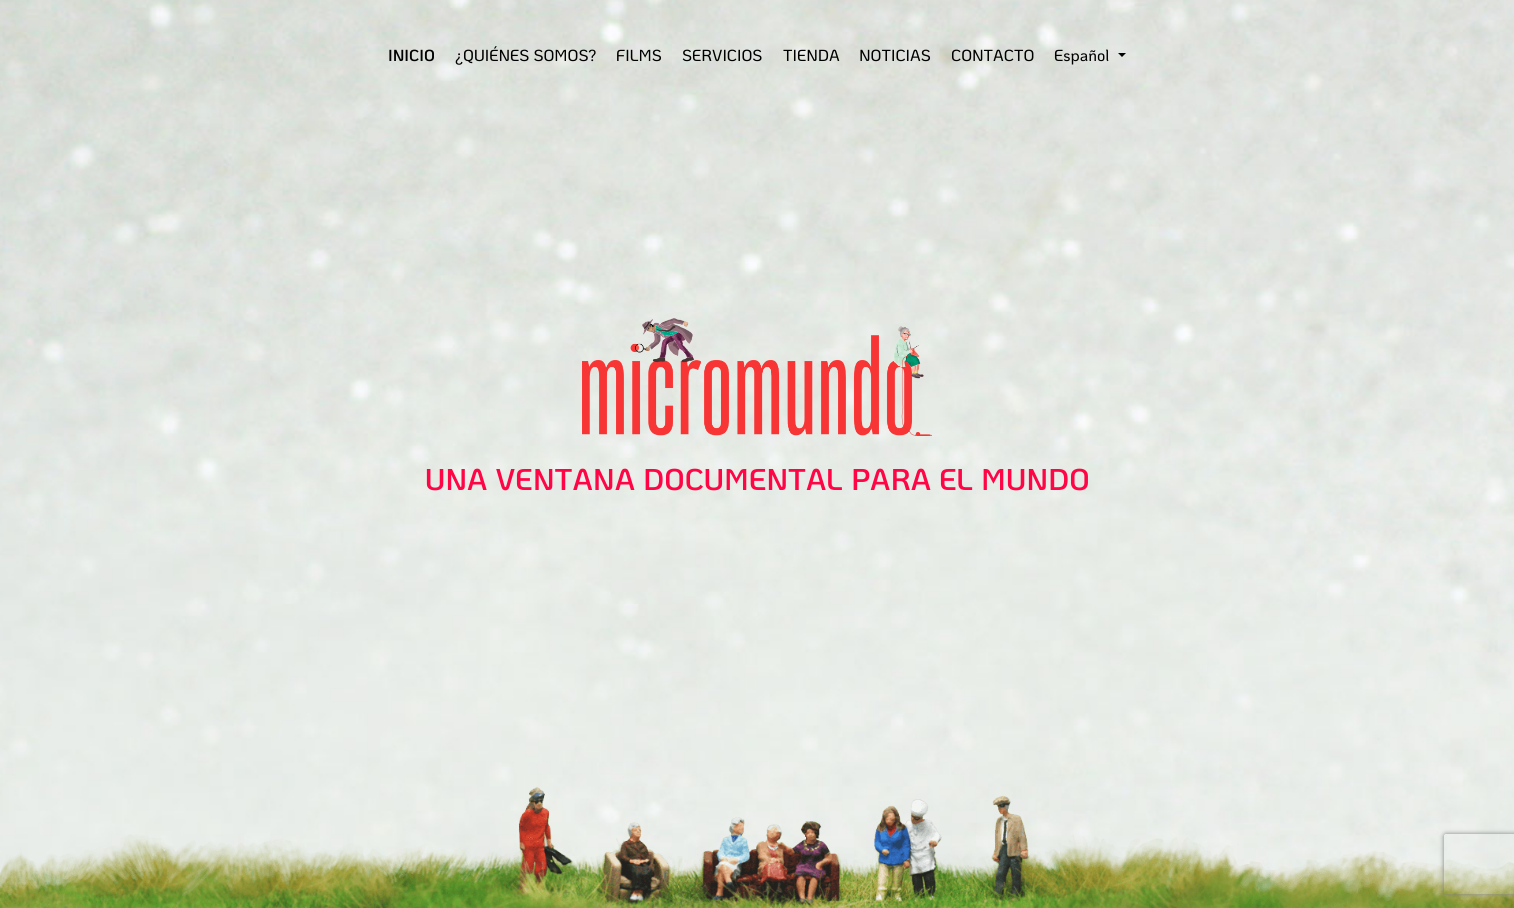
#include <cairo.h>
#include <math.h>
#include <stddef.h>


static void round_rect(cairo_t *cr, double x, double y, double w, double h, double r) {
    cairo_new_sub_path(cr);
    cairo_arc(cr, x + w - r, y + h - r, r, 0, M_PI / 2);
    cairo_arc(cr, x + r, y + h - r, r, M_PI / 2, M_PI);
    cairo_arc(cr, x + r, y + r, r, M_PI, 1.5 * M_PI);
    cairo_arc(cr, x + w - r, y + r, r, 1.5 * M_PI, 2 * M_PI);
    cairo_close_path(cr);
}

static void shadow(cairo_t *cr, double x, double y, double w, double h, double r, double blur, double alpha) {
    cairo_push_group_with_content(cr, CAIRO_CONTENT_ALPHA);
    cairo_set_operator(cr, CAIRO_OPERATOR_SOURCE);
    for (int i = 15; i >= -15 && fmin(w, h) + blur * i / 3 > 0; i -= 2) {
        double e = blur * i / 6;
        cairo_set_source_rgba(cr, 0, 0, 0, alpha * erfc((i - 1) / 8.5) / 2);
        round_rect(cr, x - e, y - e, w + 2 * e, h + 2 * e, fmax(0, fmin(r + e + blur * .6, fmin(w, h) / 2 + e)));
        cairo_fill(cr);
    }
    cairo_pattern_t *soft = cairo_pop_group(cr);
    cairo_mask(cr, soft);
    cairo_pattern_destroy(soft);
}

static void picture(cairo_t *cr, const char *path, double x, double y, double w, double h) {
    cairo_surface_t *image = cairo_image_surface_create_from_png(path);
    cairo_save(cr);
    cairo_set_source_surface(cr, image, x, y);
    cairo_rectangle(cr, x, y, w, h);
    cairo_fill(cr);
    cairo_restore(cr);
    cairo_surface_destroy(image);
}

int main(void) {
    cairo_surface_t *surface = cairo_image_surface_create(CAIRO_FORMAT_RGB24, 1514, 908);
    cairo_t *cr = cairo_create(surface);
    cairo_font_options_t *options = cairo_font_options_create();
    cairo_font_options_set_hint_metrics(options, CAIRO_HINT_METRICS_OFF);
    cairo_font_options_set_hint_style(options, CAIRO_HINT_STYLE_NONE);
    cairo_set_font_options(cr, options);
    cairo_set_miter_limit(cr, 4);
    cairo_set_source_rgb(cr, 1, 1, 1);
    cairo_paint(cr);
    picture(cr, "img1.png", 0, 0, 1514, 908);
    cairo_select_font_face(cr, "KoHo SemiBold", CAIRO_FONT_SLANT_NORMAL, CAIRO_FONT_WEIGHT_NORMAL);
    cairo_set_font_size(cr, 16);
    cairo_set_source_rgb(cr, 0, 0, 0);
    cairo_move_to(cr, 388, 61);
    cairo_show_text(cr, "INICIO");
    cairo_select_font_face(cr, "KoHo Medium", CAIRO_FONT_SLANT_NORMAL, CAIRO_FONT_WEIGHT_NORMAL);
    cairo_move_to(cr, 455, 61);
    cairo_show_text(cr, "¿QUIÉNES SOMOS?");
    cairo_move_to(cr, 616, 61);
    cairo_show_text(cr, "FILMS");
    cairo_move_to(cr, 682, 61);
    cairo_show_text(cr, "SERVICIOS");
    cairo_move_to(cr, 783, 61);
    cairo_show_text(cr, "TIENDA");
    cairo_move_to(cr, 859, 61);
    cairo_show_text(cr, "NOTICIAS");
    cairo_move_to(cr, 951, 61);
    cairo_show_text(cr, "CONTACTO");
    cairo_move_to(cr, 1054, 61);
    cairo_show_text(cr, "Español");
    cairo_new_path(cr);
    cairo_move_to(cr, 1118, 53);
    cairo_line_to(cr, 1126, 53);
    cairo_line_to(cr, 1122, 57);
    cairo_close_path(cr);
    cairo_fill(cr);
    picture(cr, "img2.png", 582, 318, 350, 118);
    cairo_select_font_face(cr, "KoHo SemiBold", CAIRO_FONT_SLANT_NORMAL, CAIRO_FONT_WEIGHT_NORMAL);
    cairo_set_font_size(cr, 30);
    cairo_set_source_rgb(cr, 1, 0.02, 0.271);
    cairo_move_to(cr, 425, 490);
    cairo_show_text(cr, "UNA VENTANA DOCUMENTAL PARA EL MUNDO");
    picture(cr, "img3.png", 0, 786, 1514, 122);
    cairo_save(cr);
    cairo_set_fill_rule(cr, CAIRO_FILL_RULE_EVEN_ODD);
    cairo_new_path(cr);
    cairo_move_to(cr, 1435, 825);
    cairo_line_to(cr, 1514, 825);
    cairo_line_to(cr, 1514, 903);
    cairo_line_to(cr, 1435, 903);
    cairo_close_path(cr);
    cairo_move_to(cr, 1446, 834);
    cairo_line_to(cr, 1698, 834);
    cairo_curve_to(cr, 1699, 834, 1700, 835, 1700, 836);
    cairo_line_to(cr, 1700, 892);
    cairo_curve_to(cr, 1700, 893, 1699, 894, 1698, 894);
    cairo_line_to(cr, 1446, 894);
    cairo_curve_to(cr, 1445, 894, 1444, 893, 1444, 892);
    cairo_line_to(cr, 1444, 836);
    cairo_curve_to(cr, 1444, 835, 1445, 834, 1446, 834);
    cairo_close_path(cr);
    cairo_clip(cr);
    cairo_set_source_rgb(cr, 0.502, 0.502, 0.502);
    shadow(cr, 1444, 834, 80, 60, 2, 2.5, 1);
    cairo_restore(cr);
    cairo_surface_write_to_png(surface, "page.png");
    cairo_font_options_destroy(options);
    cairo_destroy(cr);
    cairo_surface_destroy(surface);
    return 0;
}
